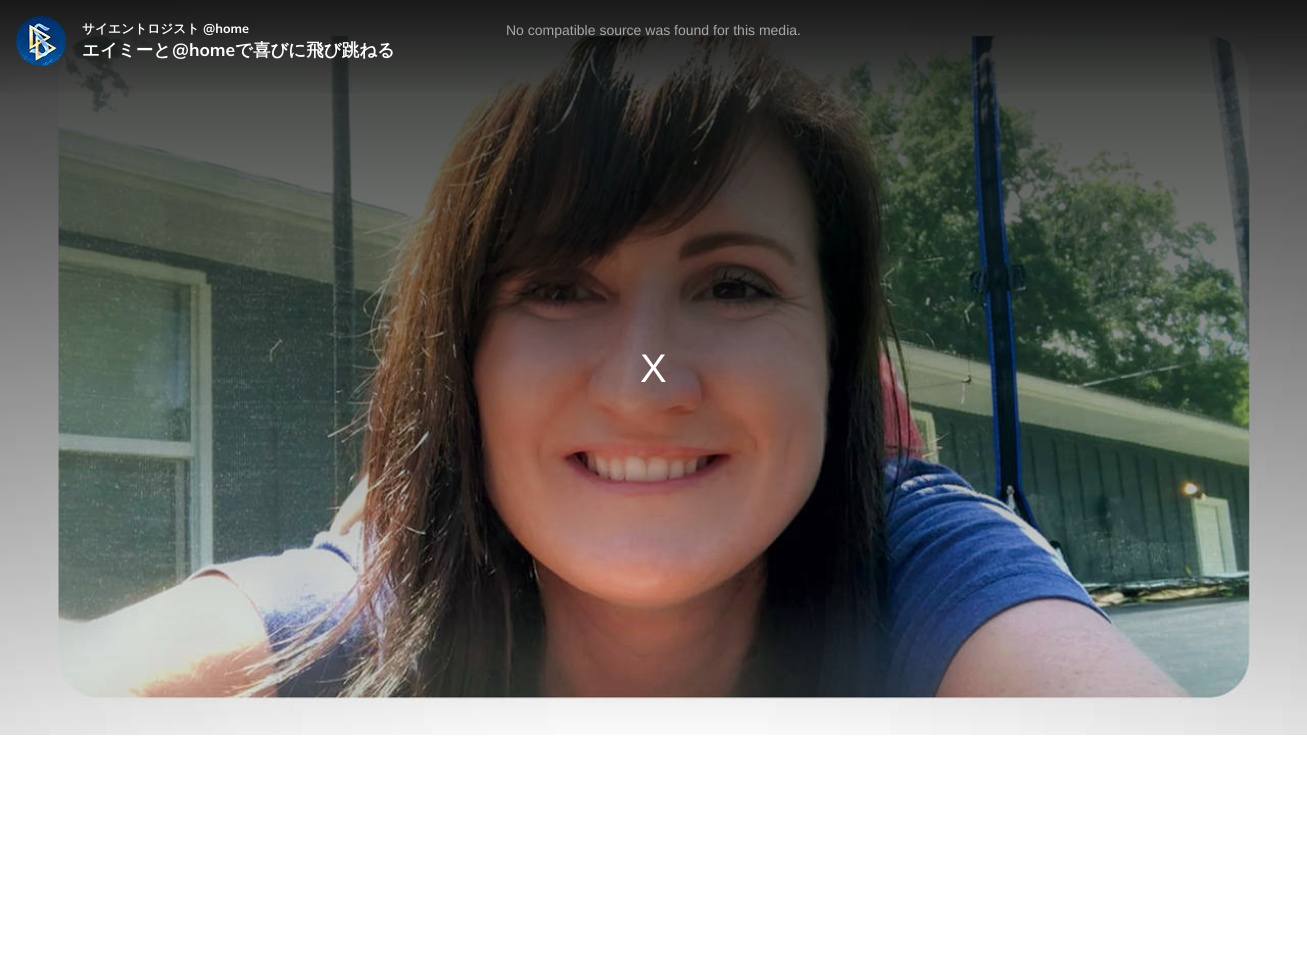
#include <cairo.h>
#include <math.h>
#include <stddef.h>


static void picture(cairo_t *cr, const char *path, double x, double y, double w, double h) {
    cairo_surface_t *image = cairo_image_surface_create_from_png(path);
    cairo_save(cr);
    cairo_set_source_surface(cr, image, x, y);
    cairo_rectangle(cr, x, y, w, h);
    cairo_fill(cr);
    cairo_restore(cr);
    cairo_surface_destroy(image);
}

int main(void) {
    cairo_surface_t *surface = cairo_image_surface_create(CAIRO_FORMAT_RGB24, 1307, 964);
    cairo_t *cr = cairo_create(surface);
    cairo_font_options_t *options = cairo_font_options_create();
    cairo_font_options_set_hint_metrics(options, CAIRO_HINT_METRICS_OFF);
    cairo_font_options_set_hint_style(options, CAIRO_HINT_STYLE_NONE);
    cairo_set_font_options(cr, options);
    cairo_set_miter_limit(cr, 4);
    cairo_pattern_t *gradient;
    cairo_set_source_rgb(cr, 1, 1, 1);
    cairo_paint(cr);
    picture(cr, "img1.png", 0, 0, 1307, 735);
    cairo_select_font_face(cr, "Liberation Sans", CAIRO_FONT_SLANT_NORMAL, CAIRO_FONT_WEIGHT_NORMAL);
    cairo_set_font_size(cr, 14);
    cairo_set_source_rgb(cr, 1, 1, 1);
    cairo_move_to(cr, 506, 35);
    cairo_show_text(cr, "No compatible source was found for this media.");
    gradient = cairo_pattern_create_linear(654, 0, 654, 100);
    cairo_pattern_add_color_stop_rgba(gradient, 0, 0, 0, 0, 0.5);
    cairo_pattern_add_color_stop_rgba(gradient, 1, 0, 0, 0, 0);
    cairo_set_source(cr, gradient);
    cairo_pattern_destroy(gradient);
    cairo_rectangle(cr, 0, 0, 1307, 93);
    cairo_fill(cr);
    picture(cr, "img2.png", 16, 16, 50, 50);
    cairo_select_font_face(cr, "WenQuanYi Zen Hei", CAIRO_FONT_SLANT_NORMAL, CAIRO_FONT_WEIGHT_BOLD);
    cairo_set_font_size(cr, 12.75);
    cairo_set_source_rgb(cr, 1, 1, 1);
    cairo_move_to(cr, 82, 33);
    cairo_show_text(cr, "サイエントロジスト");
    cairo_select_font_face(cr, "Mulish", CAIRO_FONT_SLANT_NORMAL, CAIRO_FONT_WEIGHT_BOLD);
    cairo_move_to(cr, 203, 33);
    cairo_show_text(cr, "@home");
    cairo_select_font_face(cr, "WenQuanYi Zen Hei", CAIRO_FONT_SLANT_NORMAL, CAIRO_FONT_WEIGHT_BOLD);
    cairo_set_font_size(cr, 17.5);
    cairo_move_to(cr, 82, 56);
    cairo_show_text(cr, "エイミーと");
    cairo_select_font_face(cr, "Mulish", CAIRO_FONT_SLANT_NORMAL, CAIRO_FONT_WEIGHT_BOLD);
    cairo_move_to(cr, 172, 56);
    cairo_show_text(cr, "@home");
    cairo_select_font_face(cr, "WenQuanYi Zen Hei", CAIRO_FONT_SLANT_NORMAL, CAIRO_FONT_WEIGHT_BOLD);
    cairo_move_to(cr, 235, 56);
    cairo_show_text(cr, "で喜びに飛び跳ねる");
    cairo_select_font_face(cr, "Liberation Sans", CAIRO_FONT_SLANT_NORMAL, CAIRO_FONT_WEIGHT_NORMAL);
    cairo_set_font_size(cr, 40);
    cairo_move_to(cr, 640, 382);
    cairo_show_text(cr, "X");
    cairo_surface_write_to_png(surface, "page.png");
    cairo_font_options_destroy(options);
    cairo_destroy(cr);
    cairo_surface_destroy(surface);
    return 0;
}
